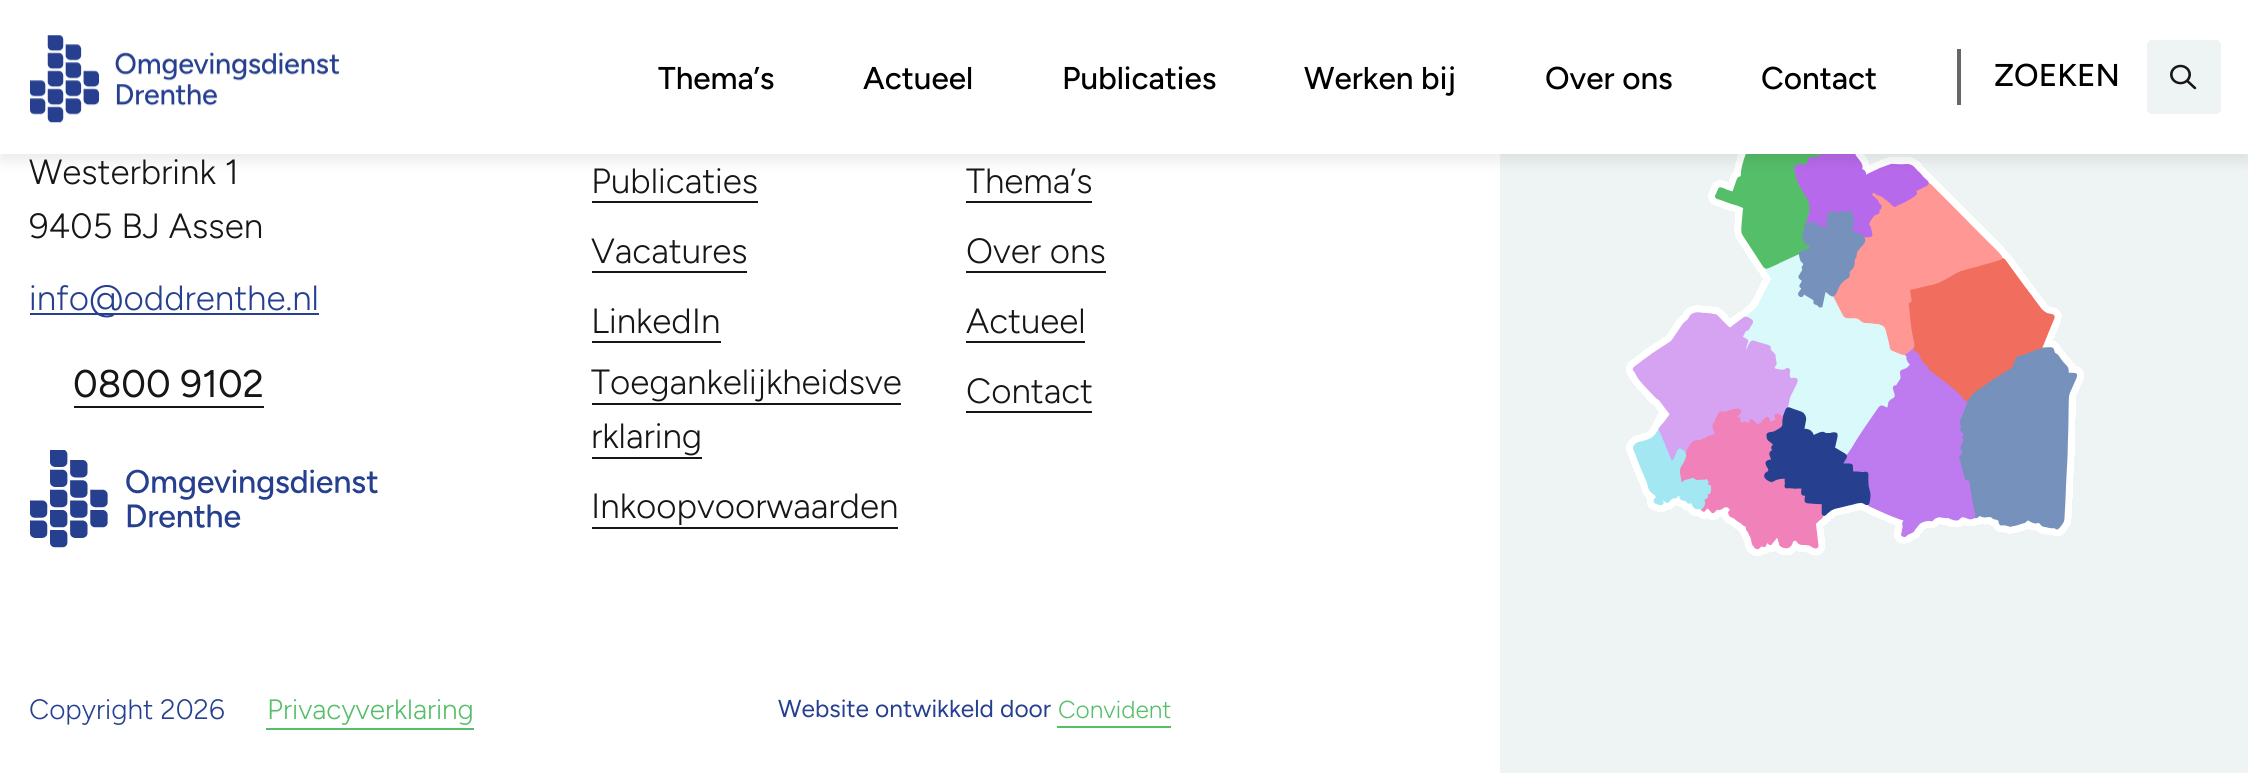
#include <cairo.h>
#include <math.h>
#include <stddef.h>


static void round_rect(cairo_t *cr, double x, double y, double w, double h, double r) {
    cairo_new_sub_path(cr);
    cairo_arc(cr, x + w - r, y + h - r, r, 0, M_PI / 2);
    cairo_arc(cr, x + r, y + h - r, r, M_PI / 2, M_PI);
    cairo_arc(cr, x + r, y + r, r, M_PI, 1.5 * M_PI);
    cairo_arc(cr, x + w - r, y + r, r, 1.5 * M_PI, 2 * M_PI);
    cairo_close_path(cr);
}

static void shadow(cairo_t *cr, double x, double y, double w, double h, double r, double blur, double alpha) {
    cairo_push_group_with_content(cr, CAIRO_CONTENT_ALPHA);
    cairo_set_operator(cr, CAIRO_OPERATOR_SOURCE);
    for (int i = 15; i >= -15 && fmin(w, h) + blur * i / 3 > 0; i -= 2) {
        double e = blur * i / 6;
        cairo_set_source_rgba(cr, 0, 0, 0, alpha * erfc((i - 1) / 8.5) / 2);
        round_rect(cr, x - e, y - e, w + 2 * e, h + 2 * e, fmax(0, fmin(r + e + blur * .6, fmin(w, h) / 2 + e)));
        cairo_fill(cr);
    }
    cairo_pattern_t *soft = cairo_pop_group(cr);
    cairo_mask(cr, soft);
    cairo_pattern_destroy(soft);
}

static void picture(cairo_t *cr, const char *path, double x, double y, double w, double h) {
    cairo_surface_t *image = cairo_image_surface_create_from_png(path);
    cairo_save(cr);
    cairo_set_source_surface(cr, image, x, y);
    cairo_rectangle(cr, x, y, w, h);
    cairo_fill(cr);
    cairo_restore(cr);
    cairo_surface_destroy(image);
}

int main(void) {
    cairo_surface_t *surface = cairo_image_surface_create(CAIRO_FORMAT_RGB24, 2248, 773);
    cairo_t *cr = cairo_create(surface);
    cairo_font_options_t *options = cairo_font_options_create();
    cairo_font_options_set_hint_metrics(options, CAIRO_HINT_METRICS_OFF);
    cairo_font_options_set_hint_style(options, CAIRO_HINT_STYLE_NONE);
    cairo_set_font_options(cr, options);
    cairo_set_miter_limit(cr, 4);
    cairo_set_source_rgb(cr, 1, 1, 1);
    cairo_paint(cr);
    cairo_set_source_rgb(cr, 0.933, 0.953, 0.953);
    cairo_rectangle(cr, 1500, 154, 748, 619);
    cairo_fill(cr);
    picture(cr, "img4.png", 1626, 154, 458, 402);
    cairo_set_source_rgb(cr, 0, 0, 0);
    shadow(cr, 0, 7, 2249, 154, 0, 7, 0.08);
    cairo_set_source_rgb(cr, 1, 1, 1);
    cairo_rectangle(cr, 0, 0, 2248, 154);
    cairo_fill(cr);
    picture(cr, "img1.png", 30, 35, 310, 88);
    cairo_select_font_face(cr, "Figtree Medium", CAIRO_FONT_SLANT_NORMAL, CAIRO_FONT_WEIGHT_NORMAL);
    cairo_set_font_size(cr, 31.5);
    cairo_set_source_rgb(cr, 0, 0, 0);
    cairo_move_to(cr, 658, 89);
    cairo_show_text(cr, "Thema’s");
    cairo_move_to(cr, 863, 89);
    cairo_show_text(cr, "Actueel");
    cairo_move_to(cr, 1062, 89);
    cairo_show_text(cr, "Publicaties");
    cairo_move_to(cr, 1304, 89);
    cairo_show_text(cr, "Werken bij");
    cairo_move_to(cr, 1545, 89);
    cairo_show_text(cr, "Over ons");
    cairo_move_to(cr, 1761, 89);
    cairo_show_text(cr, "Contact");
    cairo_set_source_rgb(cr, 0.4, 0.4, 0.4);
    cairo_rectangle(cr, 1957, 49, 4, 56);
    cairo_fill(cr);
    cairo_set_source_rgb(cr, 0, 0, 0);
    cairo_move_to(cr, 1994, 86);
    cairo_show_text(cr, "ZOEKEN");
    picture(cr, "img2.png", 2147, 40, 74, 74);
    cairo_select_font_face(cr, "Figtree Light", CAIRO_FONT_SLANT_NORMAL, CAIRO_FONT_WEIGHT_NORMAL);
    cairo_set_font_size(cr, 35);
    cairo_set_source_rgb(cr, 0.086, 0.086, 0.086);
    cairo_move_to(cr, 29, 184);
    cairo_show_text(cr, "Westerbrink 1");
    cairo_move_to(cr, 29, 238);
    cairo_show_text(cr, "9405 BJ Assen");
    cairo_set_source_rgb(cr, 0.149, 0.251, 0.561);
    cairo_rectangle(cr, 30, 313, 289, 2);
    cairo_fill(cr);
    cairo_move_to(cr, 29, 310);
    cairo_show_text(cr, "info@oddrenthe.nl");
    cairo_select_font_face(cr, "Figtree", CAIRO_FONT_SLANT_NORMAL, CAIRO_FONT_WEIGHT_NORMAL);
    cairo_set_font_size(cr, 38.5);
    cairo_set_source_rgb(cr, 0.086, 0.086, 0.086);
    cairo_move_to(cr, 73, 397);
    cairo_show_text(cr, "0800 9102");
    cairo_rectangle(cr, 74, 406, 190, 2);
    cairo_fill(cr);
    picture(cr, "img3.png", 30, 450, 348, 98);
    cairo_select_font_face(cr, "Figtree Light", CAIRO_FONT_SLANT_NORMAL, CAIRO_FONT_WEIGHT_NORMAL);
    cairo_set_font_size(cr, 35);
    cairo_move_to(cr, 591, 193);
    cairo_show_text(cr, "Publicaties");
    cairo_rectangle(cr, 592, 201, 166, 2);
    cairo_fill(cr);
    cairo_move_to(cr, 591, 263);
    cairo_show_text(cr, "Vacatures");
    cairo_rectangle(cr, 592, 271, 155, 2);
    cairo_fill(cr);
    cairo_move_to(cr, 591, 333);
    cairo_show_text(cr, "LinkedIn");
    cairo_rectangle(cr, 592, 341, 129, 2);
    cairo_fill(cr);
    cairo_move_to(cr, 591, 394);
    cairo_show_text(cr, "Toegankelijkheidsve");
    cairo_rectangle(cr, 592, 403, 309, 2);
    cairo_fill(cr);
    cairo_move_to(cr, 591, 448);
    cairo_show_text(cr, "rklaring");
    cairo_rectangle(cr, 592, 457, 110, 2);
    cairo_fill(cr);
    cairo_move_to(cr, 591, 518);
    cairo_show_text(cr, "Inkoopvoorwaarden");
    cairo_rectangle(cr, 592, 527, 306, 2);
    cairo_fill(cr);
    cairo_move_to(cr, 966, 193);
    cairo_show_text(cr, "Thema’s");
    cairo_rectangle(cr, 966, 201, 126, 2);
    cairo_fill(cr);
    cairo_move_to(cr, 966, 263);
    cairo_show_text(cr, "Over ons");
    cairo_rectangle(cr, 966, 271, 140, 2);
    cairo_fill(cr);
    cairo_move_to(cr, 966, 333);
    cairo_show_text(cr, "Actueel");
    cairo_rectangle(cr, 966, 341, 119, 2);
    cairo_fill(cr);
    cairo_move_to(cr, 966, 403);
    cairo_show_text(cr, "Contact");
    cairo_rectangle(cr, 966, 411, 126, 2);
    cairo_fill(cr);
    cairo_set_font_size(cr, 28);
    cairo_set_source_rgb(cr, 0.149, 0.251, 0.561);
    cairo_move_to(cr, 29, 719);
    cairo_show_text(cr, "Copyright 2026");
    cairo_set_source_rgb(cr, 0.333, 0.745, 0.412);
    cairo_move_to(cr, 267, 719);
    cairo_show_text(cr, "Privacyverklaring");
    cairo_rectangle(cr, 266, 728, 208, 2);
    cairo_fill(cr);
    cairo_select_font_face(cr, "Figtree", CAIRO_FONT_SLANT_NORMAL, CAIRO_FONT_WEIGHT_NORMAL);
    cairo_set_font_size(cr, 24.5);
    cairo_set_source_rgb(cr, 0.149, 0.251, 0.561);
    cairo_move_to(cr, 778, 717);
    cairo_show_text(cr, "Website ontwikkeld door");
    cairo_select_font_face(cr, "Figtree Light", CAIRO_FONT_SLANT_NORMAL, CAIRO_FONT_WEIGHT_NORMAL);
    cairo_set_source_rgb(cr, 0.333, 0.745, 0.412);
    cairo_move_to(cr, 1058, 718);
    cairo_show_text(cr, "Convident");
    cairo_rectangle(cr, 1057, 726, 114, 2);
    cairo_fill(cr);
    cairo_surface_write_to_png(surface, "page.png");
    cairo_font_options_destroy(options);
    cairo_destroy(cr);
    cairo_surface_destroy(surface);
    return 0;
}
